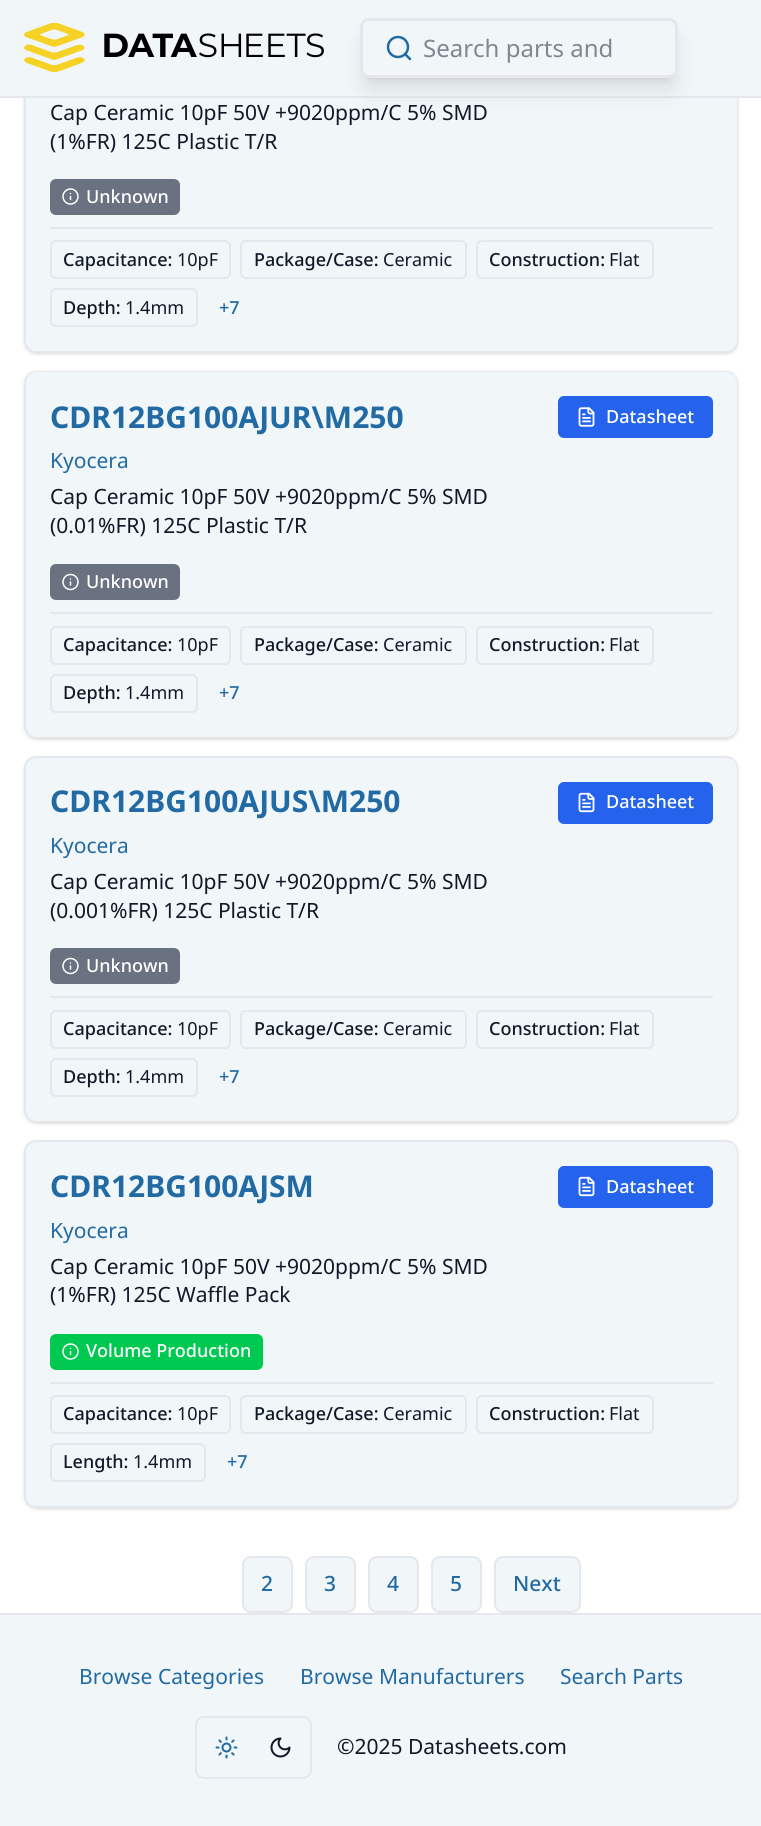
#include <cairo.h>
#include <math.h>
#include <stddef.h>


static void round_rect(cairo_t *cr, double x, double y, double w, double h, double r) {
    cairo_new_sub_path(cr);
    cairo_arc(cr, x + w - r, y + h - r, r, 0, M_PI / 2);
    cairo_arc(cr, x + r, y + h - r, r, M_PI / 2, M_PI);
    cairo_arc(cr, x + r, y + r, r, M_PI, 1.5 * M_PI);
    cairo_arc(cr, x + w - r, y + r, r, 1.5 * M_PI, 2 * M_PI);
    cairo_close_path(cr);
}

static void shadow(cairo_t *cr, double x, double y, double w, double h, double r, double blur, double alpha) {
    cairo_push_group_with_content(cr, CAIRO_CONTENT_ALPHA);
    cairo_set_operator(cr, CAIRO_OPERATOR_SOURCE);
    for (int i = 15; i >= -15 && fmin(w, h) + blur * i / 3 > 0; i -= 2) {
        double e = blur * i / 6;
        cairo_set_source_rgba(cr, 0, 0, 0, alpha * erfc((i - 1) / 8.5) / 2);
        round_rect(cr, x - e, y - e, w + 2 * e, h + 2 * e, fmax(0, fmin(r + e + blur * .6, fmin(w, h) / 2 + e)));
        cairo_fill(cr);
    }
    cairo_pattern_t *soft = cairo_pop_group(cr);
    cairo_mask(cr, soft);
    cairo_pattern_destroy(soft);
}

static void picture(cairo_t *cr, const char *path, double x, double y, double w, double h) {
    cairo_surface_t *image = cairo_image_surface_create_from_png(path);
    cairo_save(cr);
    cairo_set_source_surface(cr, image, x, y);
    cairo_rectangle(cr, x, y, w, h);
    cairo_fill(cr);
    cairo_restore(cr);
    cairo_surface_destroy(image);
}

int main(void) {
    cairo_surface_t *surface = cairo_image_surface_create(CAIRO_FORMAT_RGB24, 761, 1826);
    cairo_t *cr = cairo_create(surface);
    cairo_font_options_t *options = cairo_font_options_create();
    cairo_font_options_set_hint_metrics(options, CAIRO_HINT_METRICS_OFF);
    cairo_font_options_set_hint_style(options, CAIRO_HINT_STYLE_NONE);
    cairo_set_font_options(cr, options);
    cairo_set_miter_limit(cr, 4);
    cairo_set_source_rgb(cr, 1, 1, 1);
    cairo_paint(cr);
    cairo_set_source_rgb(cr, 0, 0, 0);
    shadow(cr, 26, -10, 711, 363, 11, 1.5, 0.1);
    shadow(cr, 24, -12, 714, 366, 12, 2, 0.1);
    cairo_set_source_rgb(cr, 0.945, 0.961, 0.976);
    round_rect(cr, 25, -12, 712, 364, 11);
    cairo_fill_preserve(cr);
    cairo_set_source_rgb(cr, 0.898, 0.906, 0.922);
    cairo_stroke(cr);
    cairo_set_source_rgb(cr, 0.945, 0.961, 0.976);
    round_rect(cr, 26, -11, 711, 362, 11);
    cairo_fill(cr);
    cairo_rectangle(cr, 0, 0, 761, 96);
    cairo_fill(cr);
    cairo_set_source_rgb(cr, 0.898, 0.906, 0.922);
    cairo_rectangle(cr, 0, 96, 761, 2);
    cairo_fill(cr);
    picture(cr, "img1.png", 24, 23, 300, 50);
    cairo_set_source_rgb(cr, 0, 0, 0);
    shadow(cr, 366, 30, 306, 48, 3, 4.5, 0.1);
    shadow(cr, 365, 38, 309, 51, 5, 11, 0.1);
    cairo_set_source_rgb(cr, 0.945, 0.961, 0.976);
    round_rect(cr, 361.5, 19.5, 315, 57, 7.5);
    cairo_fill_preserve(cr);
    cairo_set_source_rgb(cr, 0.898, 0.906, 0.922);
    cairo_set_line_width(cr, 3);
    cairo_stroke(cr);
    cairo_arc(cr, 398, 47, 10, 0, 2 * M_PI);
    cairo_set_source_rgb(cr, 0.133, 0.416, 0.639);
    cairo_set_line_width(cr, 2.5);
    cairo_stroke(cr);
    cairo_new_path(cr);
    cairo_move_to(cr, 410, 59);
    cairo_line_to(cr, 405, 54);
    cairo_set_line_cap(cr, CAIRO_LINE_CAP_ROUND);
    cairo_set_line_join(cr, CAIRO_LINE_JOIN_ROUND);
    cairo_stroke(cr);
    cairo_select_font_face(cr, "Noto Sans", CAIRO_FONT_SLANT_NORMAL, CAIRO_FONT_WEIGHT_NORMAL);
    cairo_set_font_size(cr, 24);
    cairo_set_source_rgb(cr, 0.506, 0.529, 0.565);
    cairo_move_to(cr, 423, 57);
    cairo_show_text(cr, "Search parts and");
    cairo_set_font_size(cr, 21);
    cairo_set_source_rgb(cr, 0.067, 0.094, 0.153);
    cairo_move_to(cr, 50, 120);
    cairo_show_text(cr, "Cap Ceramic 10pF 50V +9020ppm/C 5% SMD");
    cairo_move_to(cr, 50, 149);
    cairo_show_text(cr, "(1%FR) 125C Plastic T/R");
    cairo_set_source_rgb(cr, 0.416, 0.447, 0.51);
    round_rect(cr, 50, 179, 130, 36, 6);
    cairo_fill(cr);
    picture(cr, "img2.png", 62, 188, 17, 17);
    cairo_select_font_face(cr, "Noto Sans Medium", CAIRO_FONT_SLANT_NORMAL, CAIRO_FONT_WEIGHT_NORMAL);
    cairo_set_font_size(cr, 18);
    cairo_set_source_rgb(cr, 1, 1, 1);
    cairo_move_to(cr, 86, 203);
    cairo_show_text(cr, "Unknown");
    cairo_set_source_rgb(cr, 0.898, 0.906, 0.922);
    cairo_rectangle(cr, 50, 227, 663, 2);
    cairo_fill(cr);
    round_rect(cr, 51, 241, 179, 37, 5);
    cairo_set_line_width(cr, 2);
    cairo_set_line_cap(cr, CAIRO_LINE_CAP_BUTT);
    cairo_set_line_join(cr, CAIRO_LINE_JOIN_MITER);
    cairo_stroke(cr);
    cairo_set_source_rgb(cr, 0.067, 0.094, 0.153);
    cairo_move_to(cr, 63, 266);
    cairo_show_text(cr, "Capacitance:");
    cairo_select_font_face(cr, "Noto Sans", CAIRO_FONT_SLANT_NORMAL, CAIRO_FONT_WEIGHT_NORMAL);
    cairo_move_to(cr, 177, 266);
    cairo_show_text(cr, "10pF");
    round_rect(cr, 241, 241, 225, 37, 5);
    cairo_set_source_rgb(cr, 0.898, 0.906, 0.922);
    cairo_stroke(cr);
    cairo_select_font_face(cr, "Noto Sans Medium", CAIRO_FONT_SLANT_NORMAL, CAIRO_FONT_WEIGHT_NORMAL);
    cairo_set_source_rgb(cr, 0.067, 0.094, 0.153);
    cairo_move_to(cr, 254, 266);
    cairo_show_text(cr, "Package/Case:");
    cairo_select_font_face(cr, "Noto Sans", CAIRO_FONT_SLANT_NORMAL, CAIRO_FONT_WEIGHT_NORMAL);
    cairo_move_to(cr, 383, 266);
    cairo_show_text(cr, "Ceramic");
    round_rect(cr, 477, 241, 176, 37, 5);
    cairo_set_source_rgb(cr, 0.898, 0.906, 0.922);
    cairo_stroke(cr);
    cairo_select_font_face(cr, "Noto Sans Medium", CAIRO_FONT_SLANT_NORMAL, CAIRO_FONT_WEIGHT_NORMAL);
    cairo_set_source_rgb(cr, 0.067, 0.094, 0.153);
    cairo_move_to(cr, 489, 266);
    cairo_show_text(cr, "Construction:");
    cairo_select_font_face(cr, "Noto Sans", CAIRO_FONT_SLANT_NORMAL, CAIRO_FONT_WEIGHT_NORMAL);
    cairo_move_to(cr, 609, 266);
    cairo_show_text(cr, "Flat");
    round_rect(cr, 51, 289, 146, 37, 5);
    cairo_set_source_rgb(cr, 0.898, 0.906, 0.922);
    cairo_stroke(cr);
    cairo_select_font_face(cr, "Noto Sans Medium", CAIRO_FONT_SLANT_NORMAL, CAIRO_FONT_WEIGHT_NORMAL);
    cairo_set_source_rgb(cr, 0.067, 0.094, 0.153);
    cairo_move_to(cr, 63, 314);
    cairo_show_text(cr, "Depth:");
    cairo_select_font_face(cr, "Noto Sans", CAIRO_FONT_SLANT_NORMAL, CAIRO_FONT_WEIGHT_NORMAL);
    cairo_move_to(cr, 125, 314);
    cairo_show_text(cr, "1.4mm");
    cairo_select_font_face(cr, "Noto Sans Medium", CAIRO_FONT_SLANT_NORMAL, CAIRO_FONT_WEIGHT_NORMAL);
    cairo_set_source_rgb(cr, 0.133, 0.416, 0.639);
    cairo_move_to(cr, 219, 314);
    cairo_show_text(cr, "+7");
    cairo_set_source_rgb(cr, 0, 0, 0);
    shadow(cr, 26, 374, 711, 364, 11, 1.5, 0.1);
    shadow(cr, 24, 372, 714, 368, 12, 2, 0.1);
    round_rect(cr, 25, 372, 712, 365, 11);
    cairo_set_source_rgb(cr, 0.898, 0.906, 0.922);
    cairo_stroke(cr);
    cairo_set_source_rgb(cr, 0.945, 0.961, 0.976);
    round_rect(cr, 26, 372, 711, 365, 11);
    cairo_fill(cr);
    cairo_select_font_face(cr, "Noto Sans", CAIRO_FONT_SLANT_NORMAL, CAIRO_FONT_WEIGHT_BOLD);
    cairo_set_font_size(cr, 30);
    cairo_set_source_rgb(cr, 0.133, 0.416, 0.639);
    cairo_move_to(cr, 50, 428);
    cairo_show_text(cr, "CDR12BG100AJUR\\M250");
    cairo_select_font_face(cr, "Noto Sans", CAIRO_FONT_SLANT_NORMAL, CAIRO_FONT_WEIGHT_NORMAL);
    cairo_set_font_size(cr, 21);
    cairo_move_to(cr, 50, 468);
    cairo_show_text(cr, "Kyocera");
    cairo_set_source_rgb(cr, 0.067, 0.094, 0.153);
    cairo_move_to(cr, 50, 504);
    cairo_show_text(cr, "Cap Ceramic 10pF 50V +9020ppm/C 5% SMD");
    cairo_move_to(cr, 50, 533);
    cairo_show_text(cr, "(0.01%FR) 125C Plastic T/R");
    cairo_set_source_rgb(cr, 0.145, 0.388, 0.922);
    round_rect(cr, 558, 396, 155, 42, 6);
    cairo_fill(cr);
    picture(cr, "img3.png", 578, 407, 17, 20);
    cairo_select_font_face(cr, "Noto Sans Medium", CAIRO_FONT_SLANT_NORMAL, CAIRO_FONT_WEIGHT_NORMAL);
    cairo_set_font_size(cr, 18);
    cairo_set_source_rgb(cr, 1, 1, 1);
    cairo_move_to(cr, 606, 423);
    cairo_show_text(cr, "Datasheet");
    cairo_set_source_rgb(cr, 0.416, 0.447, 0.51);
    round_rect(cr, 50, 564, 130, 36, 6);
    cairo_fill(cr);
    picture(cr, "img4.png", 62, 573, 17, 18);
    cairo_set_source_rgb(cr, 1, 1, 1);
    cairo_move_to(cr, 86, 588);
    cairo_show_text(cr, "Unknown");
    cairo_set_source_rgb(cr, 0.898, 0.906, 0.922);
    cairo_rectangle(cr, 50, 612, 663, 2);
    cairo_fill(cr);
    round_rect(cr, 51, 627, 179, 37, 5);
    cairo_stroke(cr);
    cairo_set_source_rgb(cr, 0.067, 0.094, 0.153);
    cairo_move_to(cr, 63, 651);
    cairo_show_text(cr, "Capacitance:");
    cairo_select_font_face(cr, "Noto Sans", CAIRO_FONT_SLANT_NORMAL, CAIRO_FONT_WEIGHT_NORMAL);
    cairo_move_to(cr, 177, 651);
    cairo_show_text(cr, "10pF");
    round_rect(cr, 241, 627, 225, 37, 5);
    cairo_set_source_rgb(cr, 0.898, 0.906, 0.922);
    cairo_stroke(cr);
    cairo_select_font_face(cr, "Noto Sans Medium", CAIRO_FONT_SLANT_NORMAL, CAIRO_FONT_WEIGHT_NORMAL);
    cairo_set_source_rgb(cr, 0.067, 0.094, 0.153);
    cairo_move_to(cr, 254, 651);
    cairo_show_text(cr, "Package/Case:");
    cairo_select_font_face(cr, "Noto Sans", CAIRO_FONT_SLANT_NORMAL, CAIRO_FONT_WEIGHT_NORMAL);
    cairo_move_to(cr, 383, 651);
    cairo_show_text(cr, "Ceramic");
    round_rect(cr, 477, 627, 176, 37, 5);
    cairo_set_source_rgb(cr, 0.898, 0.906, 0.922);
    cairo_stroke(cr);
    cairo_select_font_face(cr, "Noto Sans Medium", CAIRO_FONT_SLANT_NORMAL, CAIRO_FONT_WEIGHT_NORMAL);
    cairo_set_source_rgb(cr, 0.067, 0.094, 0.153);
    cairo_move_to(cr, 489, 651);
    cairo_show_text(cr, "Construction:");
    cairo_select_font_face(cr, "Noto Sans", CAIRO_FONT_SLANT_NORMAL, CAIRO_FONT_WEIGHT_NORMAL);
    cairo_move_to(cr, 609, 651);
    cairo_show_text(cr, "Flat");
    round_rect(cr, 51, 675, 146, 37, 5);
    cairo_set_source_rgb(cr, 0.898, 0.906, 0.922);
    cairo_stroke(cr);
    cairo_select_font_face(cr, "Noto Sans Medium", CAIRO_FONT_SLANT_NORMAL, CAIRO_FONT_WEIGHT_NORMAL);
    cairo_set_source_rgb(cr, 0.067, 0.094, 0.153);
    cairo_move_to(cr, 63, 699);
    cairo_show_text(cr, "Depth:");
    cairo_select_font_face(cr, "Noto Sans", CAIRO_FONT_SLANT_NORMAL, CAIRO_FONT_WEIGHT_NORMAL);
    cairo_move_to(cr, 125, 699);
    cairo_show_text(cr, "1.4mm");
    cairo_select_font_face(cr, "Noto Sans Medium", CAIRO_FONT_SLANT_NORMAL, CAIRO_FONT_WEIGHT_NORMAL);
    cairo_set_source_rgb(cr, 0.133, 0.416, 0.639);
    cairo_move_to(cr, 219, 699);
    cairo_show_text(cr, "+7");
    cairo_set_source_rgb(cr, 0, 0, 0);
    shadow(cr, 26, 759, 711, 363, 11, 1.5, 0.1);
    shadow(cr, 24, 758, 714, 366, 12, 2, 0.1);
    cairo_set_source_rgb(cr, 0.945, 0.961, 0.976);
    round_rect(cr, 25, 757, 712, 364, 11);
    cairo_fill_preserve(cr);
    cairo_set_source_rgb(cr, 0.898, 0.906, 0.922);
    cairo_stroke(cr);
    cairo_set_source_rgb(cr, 0.945, 0.961, 0.976);
    round_rect(cr, 26, 758, 711, 363, 11);
    cairo_fill(cr);
    cairo_select_font_face(cr, "Noto Sans", CAIRO_FONT_SLANT_NORMAL, CAIRO_FONT_WEIGHT_BOLD);
    cairo_set_font_size(cr, 30);
    cairo_set_source_rgb(cr, 0.133, 0.416, 0.639);
    cairo_move_to(cr, 50, 812);
    cairo_show_text(cr, "CDR12BG100AJUS\\M250");
    cairo_select_font_face(cr, "Noto Sans", CAIRO_FONT_SLANT_NORMAL, CAIRO_FONT_WEIGHT_NORMAL);
    cairo_set_font_size(cr, 21);
    cairo_move_to(cr, 50, 853);
    cairo_show_text(cr, "Kyocera");
    cairo_set_source_rgb(cr, 0.067, 0.094, 0.153);
    cairo_move_to(cr, 50, 889);
    cairo_show_text(cr, "Cap Ceramic 10pF 50V +9020ppm/C 5% SMD");
    cairo_move_to(cr, 50, 918);
    cairo_show_text(cr, "(0.001%FR) 125C Plastic T/R");
    cairo_set_source_rgb(cr, 0.145, 0.388, 0.922);
    round_rect(cr, 558, 782, 155, 42, 6);
    cairo_fill(cr);
    picture(cr, "img5.png", 578, 792, 17, 21);
    cairo_select_font_face(cr, "Noto Sans Medium", CAIRO_FONT_SLANT_NORMAL, CAIRO_FONT_WEIGHT_NORMAL);
    cairo_set_font_size(cr, 18);
    cairo_set_source_rgb(cr, 1, 1, 1);
    cairo_move_to(cr, 606, 808);
    cairo_show_text(cr, "Datasheet");
    cairo_set_source_rgb(cr, 0.416, 0.447, 0.51);
    round_rect(cr, 50, 948, 130, 36, 6);
    cairo_fill(cr);
    picture(cr, "img4.png", 62, 957, 17, 18);
    cairo_set_source_rgb(cr, 1, 1, 1);
    cairo_move_to(cr, 86, 972);
    cairo_show_text(cr, "Unknown");
    cairo_set_source_rgb(cr, 0.898, 0.906, 0.922);
    cairo_rectangle(cr, 50, 996, 663, 2);
    cairo_fill(cr);
    round_rect(cr, 51, 1011, 179, 37, 5);
    cairo_stroke(cr);
    cairo_set_source_rgb(cr, 0.067, 0.094, 0.153);
    cairo_move_to(cr, 63, 1035);
    cairo_show_text(cr, "Capacitance:");
    cairo_select_font_face(cr, "Noto Sans", CAIRO_FONT_SLANT_NORMAL, CAIRO_FONT_WEIGHT_NORMAL);
    cairo_move_to(cr, 177, 1035);
    cairo_show_text(cr, "10pF");
    round_rect(cr, 241, 1011, 225, 37, 5);
    cairo_set_source_rgb(cr, 0.898, 0.906, 0.922);
    cairo_stroke(cr);
    cairo_select_font_face(cr, "Noto Sans Medium", CAIRO_FONT_SLANT_NORMAL, CAIRO_FONT_WEIGHT_NORMAL);
    cairo_set_source_rgb(cr, 0.067, 0.094, 0.153);
    cairo_move_to(cr, 254, 1035);
    cairo_show_text(cr, "Package/Case:");
    cairo_select_font_face(cr, "Noto Sans", CAIRO_FONT_SLANT_NORMAL, CAIRO_FONT_WEIGHT_NORMAL);
    cairo_move_to(cr, 383, 1035);
    cairo_show_text(cr, "Ceramic");
    round_rect(cr, 477, 1011, 176, 37, 5);
    cairo_set_source_rgb(cr, 0.898, 0.906, 0.922);
    cairo_stroke(cr);
    cairo_select_font_face(cr, "Noto Sans Medium", CAIRO_FONT_SLANT_NORMAL, CAIRO_FONT_WEIGHT_NORMAL);
    cairo_set_source_rgb(cr, 0.067, 0.094, 0.153);
    cairo_move_to(cr, 489, 1035);
    cairo_show_text(cr, "Construction:");
    cairo_select_font_face(cr, "Noto Sans", CAIRO_FONT_SLANT_NORMAL, CAIRO_FONT_WEIGHT_NORMAL);
    cairo_move_to(cr, 609, 1035);
    cairo_show_text(cr, "Flat");
    round_rect(cr, 51, 1059, 146, 37, 5);
    cairo_set_source_rgb(cr, 0.898, 0.906, 0.922);
    cairo_stroke(cr);
    cairo_select_font_face(cr, "Noto Sans Medium", CAIRO_FONT_SLANT_NORMAL, CAIRO_FONT_WEIGHT_NORMAL);
    cairo_set_source_rgb(cr, 0.067, 0.094, 0.153);
    cairo_move_to(cr, 63, 1083);
    cairo_show_text(cr, "Depth:");
    cairo_select_font_face(cr, "Noto Sans", CAIRO_FONT_SLANT_NORMAL, CAIRO_FONT_WEIGHT_NORMAL);
    cairo_move_to(cr, 125, 1083);
    cairo_show_text(cr, "1.4mm");
    cairo_select_font_face(cr, "Noto Sans Medium", CAIRO_FONT_SLANT_NORMAL, CAIRO_FONT_WEIGHT_NORMAL);
    cairo_set_source_rgb(cr, 0.133, 0.416, 0.639);
    cairo_move_to(cr, 219, 1083);
    cairo_show_text(cr, "+7");
    cairo_set_source_rgb(cr, 0, 0, 0);
    shadow(cr, 26, 1143, 711, 365, 11, 1.5, 0.1);
    shadow(cr, 24, 1142, 714, 367, 12, 2, 0.1);
    cairo_set_source_rgb(cr, 0.945, 0.961, 0.976);
    round_rect(cr, 25, 1141, 712, 366, 11);
    cairo_fill_preserve(cr);
    cairo_set_source_rgb(cr, 0.898, 0.906, 0.922);
    cairo_stroke(cr);
    cairo_set_source_rgb(cr, 0.945, 0.961, 0.976);
    round_rect(cr, 26, 1142, 711, 364, 11);
    cairo_fill(cr);
    cairo_select_font_face(cr, "Noto Sans", CAIRO_FONT_SLANT_NORMAL, CAIRO_FONT_WEIGHT_BOLD);
    cairo_set_font_size(cr, 30);
    cairo_set_source_rgb(cr, 0.133, 0.416, 0.639);
    cairo_move_to(cr, 50, 1197);
    cairo_show_text(cr, "CDR12BG100AJSM");
    cairo_select_font_face(cr, "Noto Sans", CAIRO_FONT_SLANT_NORMAL, CAIRO_FONT_WEIGHT_NORMAL);
    cairo_set_font_size(cr, 21);
    cairo_move_to(cr, 50, 1238);
    cairo_show_text(cr, "Kyocera");
    cairo_set_source_rgb(cr, 0.067, 0.094, 0.153);
    cairo_move_to(cr, 50, 1274);
    cairo_show_text(cr, "Cap Ceramic 10pF 50V +9020ppm/C 5% SMD");
    cairo_move_to(cr, 50, 1302);
    cairo_show_text(cr, "(1%FR) 125C Waffle Pack");
    cairo_set_source_rgb(cr, 0.145, 0.388, 0.922);
    round_rect(cr, 558, 1166, 155, 42, 6);
    cairo_fill(cr);
    picture(cr, "img5.png", 578, 1176, 17, 21);
    cairo_select_font_face(cr, "Noto Sans Medium", CAIRO_FONT_SLANT_NORMAL, CAIRO_FONT_WEIGHT_NORMAL);
    cairo_set_font_size(cr, 18);
    cairo_set_source_rgb(cr, 1, 1, 1);
    cairo_move_to(cr, 606, 1193);
    cairo_show_text(cr, "Datasheet");
    cairo_set_source_rgb(cr, 0, 0.788, 0.318);
    round_rect(cr, 50, 1334, 213, 36, 6);
    cairo_fill(cr);
    picture(cr, "img6.png", 62, 1343, 17, 17);
    cairo_set_source_rgb(cr, 1, 1, 1);
    cairo_move_to(cr, 86, 1357);
    cairo_show_text(cr, "Volume Production");
    cairo_set_source_rgb(cr, 0.898, 0.906, 0.922);
    cairo_rectangle(cr, 50, 1382, 663, 2);
    cairo_fill(cr);
    round_rect(cr, 51, 1396, 179, 37, 5);
    cairo_stroke(cr);
    cairo_set_source_rgb(cr, 0.067, 0.094, 0.153);
    cairo_move_to(cr, 63, 1420);
    cairo_show_text(cr, "Capacitance:");
    cairo_select_font_face(cr, "Noto Sans", CAIRO_FONT_SLANT_NORMAL, CAIRO_FONT_WEIGHT_NORMAL);
    cairo_move_to(cr, 177, 1420);
    cairo_show_text(cr, "10pF");
    round_rect(cr, 241, 1396, 225, 37, 5);
    cairo_set_source_rgb(cr, 0.898, 0.906, 0.922);
    cairo_stroke(cr);
    cairo_select_font_face(cr, "Noto Sans Medium", CAIRO_FONT_SLANT_NORMAL, CAIRO_FONT_WEIGHT_NORMAL);
    cairo_set_source_rgb(cr, 0.067, 0.094, 0.153);
    cairo_move_to(cr, 254, 1420);
    cairo_show_text(cr, "Package/Case:");
    cairo_select_font_face(cr, "Noto Sans", CAIRO_FONT_SLANT_NORMAL, CAIRO_FONT_WEIGHT_NORMAL);
    cairo_move_to(cr, 383, 1420);
    cairo_show_text(cr, "Ceramic");
    round_rect(cr, 477, 1396, 176, 37, 5);
    cairo_set_source_rgb(cr, 0.898, 0.906, 0.922);
    cairo_stroke(cr);
    cairo_select_font_face(cr, "Noto Sans Medium", CAIRO_FONT_SLANT_NORMAL, CAIRO_FONT_WEIGHT_NORMAL);
    cairo_set_source_rgb(cr, 0.067, 0.094, 0.153);
    cairo_move_to(cr, 489, 1420);
    cairo_show_text(cr, "Construction:");
    cairo_select_font_face(cr, "Noto Sans", CAIRO_FONT_SLANT_NORMAL, CAIRO_FONT_WEIGHT_NORMAL);
    cairo_move_to(cr, 609, 1420);
    cairo_show_text(cr, "Flat");
    round_rect(cr, 51, 1444, 154, 37, 5);
    cairo_set_source_rgb(cr, 0.898, 0.906, 0.922);
    cairo_stroke(cr);
    cairo_select_font_face(cr, "Noto Sans Medium", CAIRO_FONT_SLANT_NORMAL, CAIRO_FONT_WEIGHT_NORMAL);
    cairo_set_source_rgb(cr, 0.067, 0.094, 0.153);
    cairo_move_to(cr, 63, 1468);
    cairo_show_text(cr, "Length:");
    cairo_select_font_face(cr, "Noto Sans", CAIRO_FONT_SLANT_NORMAL, CAIRO_FONT_WEIGHT_NORMAL);
    cairo_move_to(cr, 133, 1468);
    cairo_show_text(cr, "1.4mm");
    cairo_select_font_face(cr, "Noto Sans Medium", CAIRO_FONT_SLANT_NORMAL, CAIRO_FONT_WEIGHT_NORMAL);
    cairo_set_source_rgb(cr, 0.133, 0.416, 0.639);
    cairo_move_to(cr, 227, 1468);
    cairo_show_text(cr, "+7");
    cairo_set_source_rgb(cr, 0.945, 0.961, 0.976);
    round_rect(cr, 243, 1557, 49, 55, 8);
    cairo_fill_preserve(cr);
    cairo_set_source_rgb(cr, 0.898, 0.906, 0.922);
    cairo_stroke(cr);
    cairo_set_font_size(cr, 21);
    cairo_set_source_rgb(cr, 0.133, 0.416, 0.639);
    cairo_move_to(cr, 261, 1591);
    cairo_show_text(cr, "2");
    cairo_set_source_rgb(cr, 0.945, 0.961, 0.976);
    round_rect(cr, 306, 1557, 49, 55, 8);
    cairo_fill_preserve(cr);
    cairo_set_source_rgb(cr, 0.898, 0.906, 0.922);
    cairo_stroke(cr);
    cairo_set_source_rgb(cr, 0.133, 0.416, 0.639);
    cairo_move_to(cr, 324, 1591);
    cairo_show_text(cr, "3");
    cairo_set_source_rgb(cr, 0.945, 0.961, 0.976);
    round_rect(cr, 369, 1557, 49, 55, 8);
    cairo_fill_preserve(cr);
    cairo_set_source_rgb(cr, 0.898, 0.906, 0.922);
    cairo_stroke(cr);
    cairo_set_source_rgb(cr, 0.133, 0.416, 0.639);
    cairo_move_to(cr, 387, 1591);
    cairo_show_text(cr, "4");
    cairo_set_source_rgb(cr, 0.945, 0.961, 0.976);
    round_rect(cr, 432, 1557, 49, 55, 8);
    cairo_fill_preserve(cr);
    cairo_set_source_rgb(cr, 0.898, 0.906, 0.922);
    cairo_stroke(cr);
    cairo_set_source_rgb(cr, 0.133, 0.416, 0.639);
    cairo_move_to(cr, 450, 1591);
    cairo_show_text(cr, "5");
    cairo_set_source_rgb(cr, 0.945, 0.961, 0.976);
    round_rect(cr, 495, 1557, 85, 55, 8);
    cairo_fill_preserve(cr);
    cairo_set_source_rgb(cr, 0.898, 0.906, 0.922);
    cairo_stroke(cr);
    cairo_set_source_rgb(cr, 0.133, 0.416, 0.639);
    cairo_move_to(cr, 513, 1591);
    cairo_show_text(cr, "Next");
    cairo_set_source_rgb(cr, 0.945, 0.961, 0.976);
    cairo_rectangle(cr, 0, 1615, 761, 211);
    cairo_fill(cr);
    cairo_set_source_rgb(cr, 0.898, 0.906, 0.922);
    cairo_rectangle(cr, 0, 1613, 761, 2);
    cairo_fill(cr);
    cairo_select_font_face(cr, "Noto Sans", CAIRO_FONT_SLANT_NORMAL, CAIRO_FONT_WEIGHT_NORMAL);
    cairo_set_source_rgb(cr, 0.133, 0.416, 0.639);
    cairo_move_to(cr, 79, 1684);
    cairo_show_text(cr, "Browse Categories");
    cairo_move_to(cr, 300, 1684);
    cairo_show_text(cr, "Browse Manufacturers");
    cairo_move_to(cr, 560, 1684);
    cairo_show_text(cr, "Search Parts");
    round_rect(cr, 196, 1717, 115, 61, 8);
    cairo_set_source_rgb(cr, 0.898, 0.906, 0.922);
    cairo_stroke(cr);
    picture(cr, "img7.png", 215, 1736, 23, 23);
    picture(cr, "img8.png", 270, 1737, 21, 21);
    cairo_set_source_rgb(cr, 0.067, 0.094, 0.153);
    cairo_move_to(cr, 337, 1754);
    cairo_show_text(cr, "©2025 Datasheets.com");
    cairo_surface_write_to_png(surface, "page.png");
    cairo_font_options_destroy(options);
    cairo_destroy(cr);
    cairo_surface_destroy(surface);
    return 0;
}
